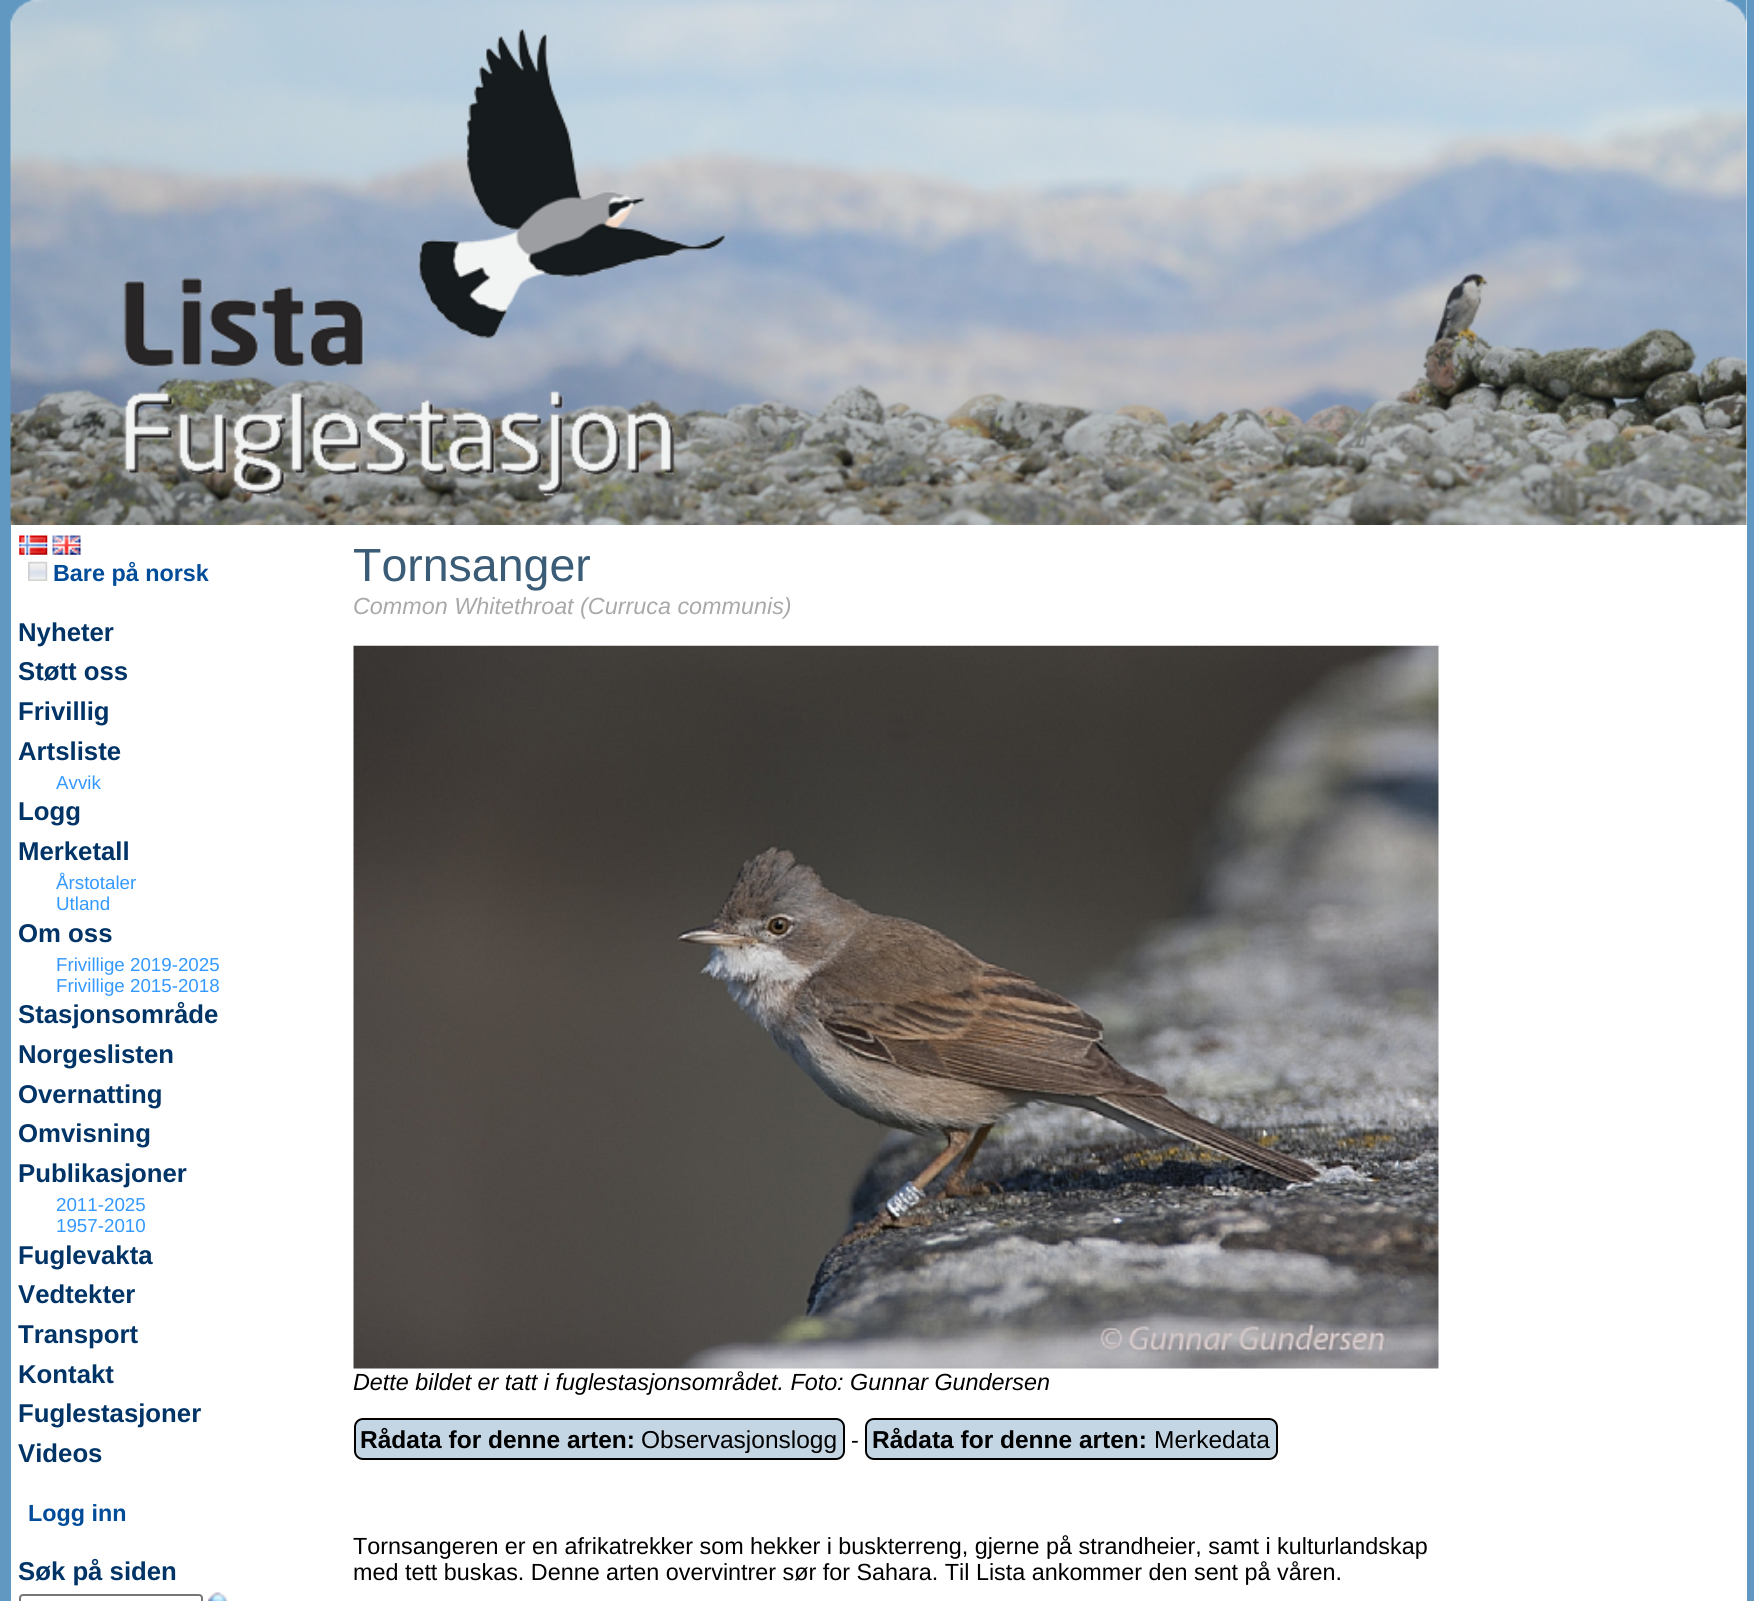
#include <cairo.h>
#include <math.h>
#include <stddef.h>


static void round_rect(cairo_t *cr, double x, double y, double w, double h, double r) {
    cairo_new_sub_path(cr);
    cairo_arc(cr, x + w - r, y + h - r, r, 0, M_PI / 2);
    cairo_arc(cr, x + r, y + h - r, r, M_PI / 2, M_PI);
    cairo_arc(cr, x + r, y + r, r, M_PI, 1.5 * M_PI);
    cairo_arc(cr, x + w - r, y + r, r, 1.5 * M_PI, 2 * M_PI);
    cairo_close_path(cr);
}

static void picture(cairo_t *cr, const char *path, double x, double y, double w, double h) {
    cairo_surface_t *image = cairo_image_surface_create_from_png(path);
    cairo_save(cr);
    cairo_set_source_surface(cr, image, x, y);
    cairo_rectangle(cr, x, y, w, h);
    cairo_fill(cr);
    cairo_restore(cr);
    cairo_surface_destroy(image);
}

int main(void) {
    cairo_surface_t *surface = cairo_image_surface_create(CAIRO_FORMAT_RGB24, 1754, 1601);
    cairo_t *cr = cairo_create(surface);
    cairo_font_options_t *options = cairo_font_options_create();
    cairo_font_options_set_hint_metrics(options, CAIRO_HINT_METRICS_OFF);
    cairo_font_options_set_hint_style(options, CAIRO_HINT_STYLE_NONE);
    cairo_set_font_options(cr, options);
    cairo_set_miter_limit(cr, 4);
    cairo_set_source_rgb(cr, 0.38, 0.596, 0.761);
    cairo_paint(cr);
    cairo_set_source_rgb(cr, 1, 1, 1);
    cairo_rectangle(cr, 1746, 0, 1, 525);
    cairo_fill(cr);
    picture(cr, "img1.png", 10, 0, 1737, 525);
    cairo_rectangle(cr, 11, 525, 1736, 1076);
    cairo_fill(cr);
    picture(cr, "img2.png", 19, 535, 29, 20);
    picture(cr, "img3.png", 52, 535, 29, 20);
    picture(cr, "img4.png", 28, 561, 20, 20);
    cairo_select_font_face(cr, "Liberation Sans", CAIRO_FONT_SLANT_NORMAL, CAIRO_FONT_WEIGHT_BOLD);
    cairo_set_font_size(cr, 23.35);
    cairo_set_source_rgb(cr, 0, 0.298, 0.6);
    cairo_move_to(cr, 53, 581);
    cairo_show_text(cr, "Bare på norsk");
    cairo_set_font_size(cr, 25.75);
    cairo_set_source_rgb(cr, 0, 0.2, 0.4);
    cairo_move_to(cr, 18, 641);
    cairo_show_text(cr, "Nyheter");
    cairo_move_to(cr, 18, 680);
    cairo_show_text(cr, "Støtt oss");
    cairo_move_to(cr, 18, 720);
    cairo_show_text(cr, "Frivillig");
    cairo_move_to(cr, 18, 760);
    cairo_show_text(cr, "Artsliste");
    cairo_select_font_face(cr, "Liberation Sans", CAIRO_FONT_SLANT_NORMAL, CAIRO_FONT_WEIGHT_NORMAL);
    cairo_set_font_size(cr, 18.75);
    cairo_set_source_rgb(cr, 0.2, 0.6, 1);
    cairo_move_to(cr, 56, 789);
    cairo_show_text(cr, "Avvik");
    cairo_select_font_face(cr, "Liberation Sans", CAIRO_FONT_SLANT_NORMAL, CAIRO_FONT_WEIGHT_BOLD);
    cairo_set_font_size(cr, 25.75);
    cairo_set_source_rgb(cr, 0, 0.2, 0.4);
    cairo_move_to(cr, 18, 820);
    cairo_show_text(cr, "Logg");
    cairo_move_to(cr, 18, 860);
    cairo_show_text(cr, "Merketall");
    cairo_select_font_face(cr, "Liberation Sans", CAIRO_FONT_SLANT_NORMAL, CAIRO_FONT_WEIGHT_NORMAL);
    cairo_set_font_size(cr, 18.75);
    cairo_set_source_rgb(cr, 0.2, 0.6, 1);
    cairo_move_to(cr, 56, 889);
    cairo_show_text(cr, "Årstotaler");
    cairo_move_to(cr, 56, 910);
    cairo_show_text(cr, "Utland");
    cairo_select_font_face(cr, "Liberation Sans", CAIRO_FONT_SLANT_NORMAL, CAIRO_FONT_WEIGHT_BOLD);
    cairo_set_font_size(cr, 25.75);
    cairo_set_source_rgb(cr, 0, 0.2, 0.4);
    cairo_move_to(cr, 18, 942);
    cairo_show_text(cr, "Om oss");
    cairo_select_font_face(cr, "Liberation Sans", CAIRO_FONT_SLANT_NORMAL, CAIRO_FONT_WEIGHT_NORMAL);
    cairo_set_font_size(cr, 18.75);
    cairo_set_source_rgb(cr, 0.2, 0.6, 1);
    cairo_move_to(cr, 56, 971);
    cairo_show_text(cr, "Frivillige 2019-2025");
    cairo_move_to(cr, 56, 992);
    cairo_show_text(cr, "Frivillige 2015-2018");
    cairo_select_font_face(cr, "Liberation Sans", CAIRO_FONT_SLANT_NORMAL, CAIRO_FONT_WEIGHT_BOLD);
    cairo_set_font_size(cr, 25.75);
    cairo_set_source_rgb(cr, 0, 0.2, 0.4);
    cairo_move_to(cr, 18, 1023);
    cairo_show_text(cr, "Stasjonsområde");
    cairo_move_to(cr, 18, 1063);
    cairo_show_text(cr, "Norgeslisten");
    cairo_move_to(cr, 18, 1103);
    cairo_show_text(cr, "Overnatting");
    cairo_move_to(cr, 18, 1142);
    cairo_show_text(cr, "Omvisning");
    cairo_move_to(cr, 18, 1182);
    cairo_show_text(cr, "Publikasjoner");
    cairo_select_font_face(cr, "Liberation Sans", CAIRO_FONT_SLANT_NORMAL, CAIRO_FONT_WEIGHT_NORMAL);
    cairo_set_font_size(cr, 18.75);
    cairo_set_source_rgb(cr, 0.2, 0.6, 1);
    cairo_move_to(cr, 56, 1211);
    cairo_show_text(cr, "2011-2025");
    cairo_move_to(cr, 56, 1232);
    cairo_show_text(cr, "1957-2010");
    cairo_select_font_face(cr, "Liberation Sans", CAIRO_FONT_SLANT_NORMAL, CAIRO_FONT_WEIGHT_BOLD);
    cairo_set_font_size(cr, 25.75);
    cairo_set_source_rgb(cr, 0, 0.2, 0.4);
    cairo_move_to(cr, 18, 1264);
    cairo_show_text(cr, "Fuglevakta");
    cairo_move_to(cr, 18, 1303);
    cairo_show_text(cr, "Vedtekter");
    cairo_move_to(cr, 18, 1343);
    cairo_show_text(cr, "Transport");
    cairo_move_to(cr, 18, 1383);
    cairo_show_text(cr, "Kontakt");
    cairo_move_to(cr, 18, 1422);
    cairo_show_text(cr, "Fuglestasjoner");
    cairo_move_to(cr, 18, 1462);
    cairo_show_text(cr, "Videos");
    cairo_set_font_size(cr, 23.35);
    cairo_set_source_rgb(cr, 0, 0.298, 0.6);
    cairo_move_to(cr, 28, 1521);
    cairo_show_text(cr, "Logg inn");
    cairo_set_font_size(cr, 25.75);
    cairo_set_source_rgb(cr, 0, 0.2, 0.4);
    cairo_move_to(cr, 18, 1580);
    cairo_show_text(cr, "Søk på siden");
    round_rect(cr, 20, 1595, 182, 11, 3);
    cairo_set_source_rgb(cr, 0.463, 0.463, 0.463);
    cairo_stroke(cr);
    picture(cr, "img5.png", 208, 1592, 20, 9);
    cairo_select_font_face(cr, "Liberation Sans", CAIRO_FONT_SLANT_NORMAL, CAIRO_FONT_WEIGHT_NORMAL);
    cairo_set_font_size(cr, 46.5);
    cairo_set_source_rgb(cr, 0.231, 0.361, 0.463);
    cairo_move_to(cr, 353, 581);
    cairo_show_text(cr, "Tornsanger");
    cairo_select_font_face(cr, "Liberation Sans", CAIRO_FONT_SLANT_ITALIC, CAIRO_FONT_WEIGHT_NORMAL);
    cairo_set_font_size(cr, 23.35);
    cairo_set_source_rgb(cr, 0.663, 0.663, 0.663);
    cairo_move_to(cr, 353, 614);
    cairo_show_text(cr, "Common Whitethroat (Curruca communis)");
    picture(cr, "img6.png", 353, 645, 1086, 724);
    cairo_set_source_rgb(cr, 0, 0, 0);
    cairo_move_to(cr, 353, 1390);
    cairo_show_text(cr, "Dette bildet er tatt i fuglestasjonsområdet. Foto: Gunnar Gundersen");
    cairo_set_source_rgb(cr, 0.769, 0.835, 0.89);
    round_rect(cr, 355, 1419, 489, 40, 8);
    cairo_fill_preserve(cr);
    cairo_set_source_rgb(cr, 0, 0, 0);
    cairo_stroke(cr);
    cairo_select_font_face(cr, "Liberation Sans", CAIRO_FONT_SLANT_NORMAL, CAIRO_FONT_WEIGHT_BOLD);
    cairo_set_font_size(cr, 24.5);
    cairo_move_to(cr, 360, 1448);
    cairo_show_text(cr, "Rådata for denne arten:");
    cairo_select_font_face(cr, "Liberation Sans", CAIRO_FONT_SLANT_NORMAL, CAIRO_FONT_WEIGHT_NORMAL);
    cairo_move_to(cr, 641, 1448);
    cairo_show_text(cr, "Observasjonslogg");
    cairo_set_font_size(cr, 23.35);
    cairo_move_to(cr, 851, 1448);
    cairo_show_text(cr, "-");
    cairo_set_source_rgb(cr, 0.769, 0.835, 0.89);
    round_rect(cr, 866, 1419, 411, 40, 8);
    cairo_fill_preserve(cr);
    cairo_set_source_rgb(cr, 0, 0, 0);
    cairo_stroke(cr);
    cairo_select_font_face(cr, "Liberation Sans", CAIRO_FONT_SLANT_NORMAL, CAIRO_FONT_WEIGHT_BOLD);
    cairo_set_font_size(cr, 24.5);
    cairo_move_to(cr, 872, 1448);
    cairo_show_text(cr, "Rådata for denne arten:");
    cairo_select_font_face(cr, "Liberation Sans", CAIRO_FONT_SLANT_NORMAL, CAIRO_FONT_WEIGHT_NORMAL);
    cairo_move_to(cr, 1154, 1448);
    cairo_show_text(cr, "Merkedata");
    cairo_set_font_size(cr, 23.35);
    cairo_move_to(cr, 353, 1554);
    cairo_show_text(cr, "Tornsangeren er en afrikatrekker som hekker i buskterreng, gjerne på strandheier, samt i kulturlandskap");
    cairo_move_to(cr, 353, 1580);
    cairo_show_text(cr, "med tett buskas. Denne arten overvintrer sør for Sahara. Til Lista ankommer den sent på våren.");
    cairo_surface_write_to_png(surface, "page.png");
    cairo_font_options_destroy(options);
    cairo_destroy(cr);
    cairo_surface_destroy(surface);
    return 0;
}
